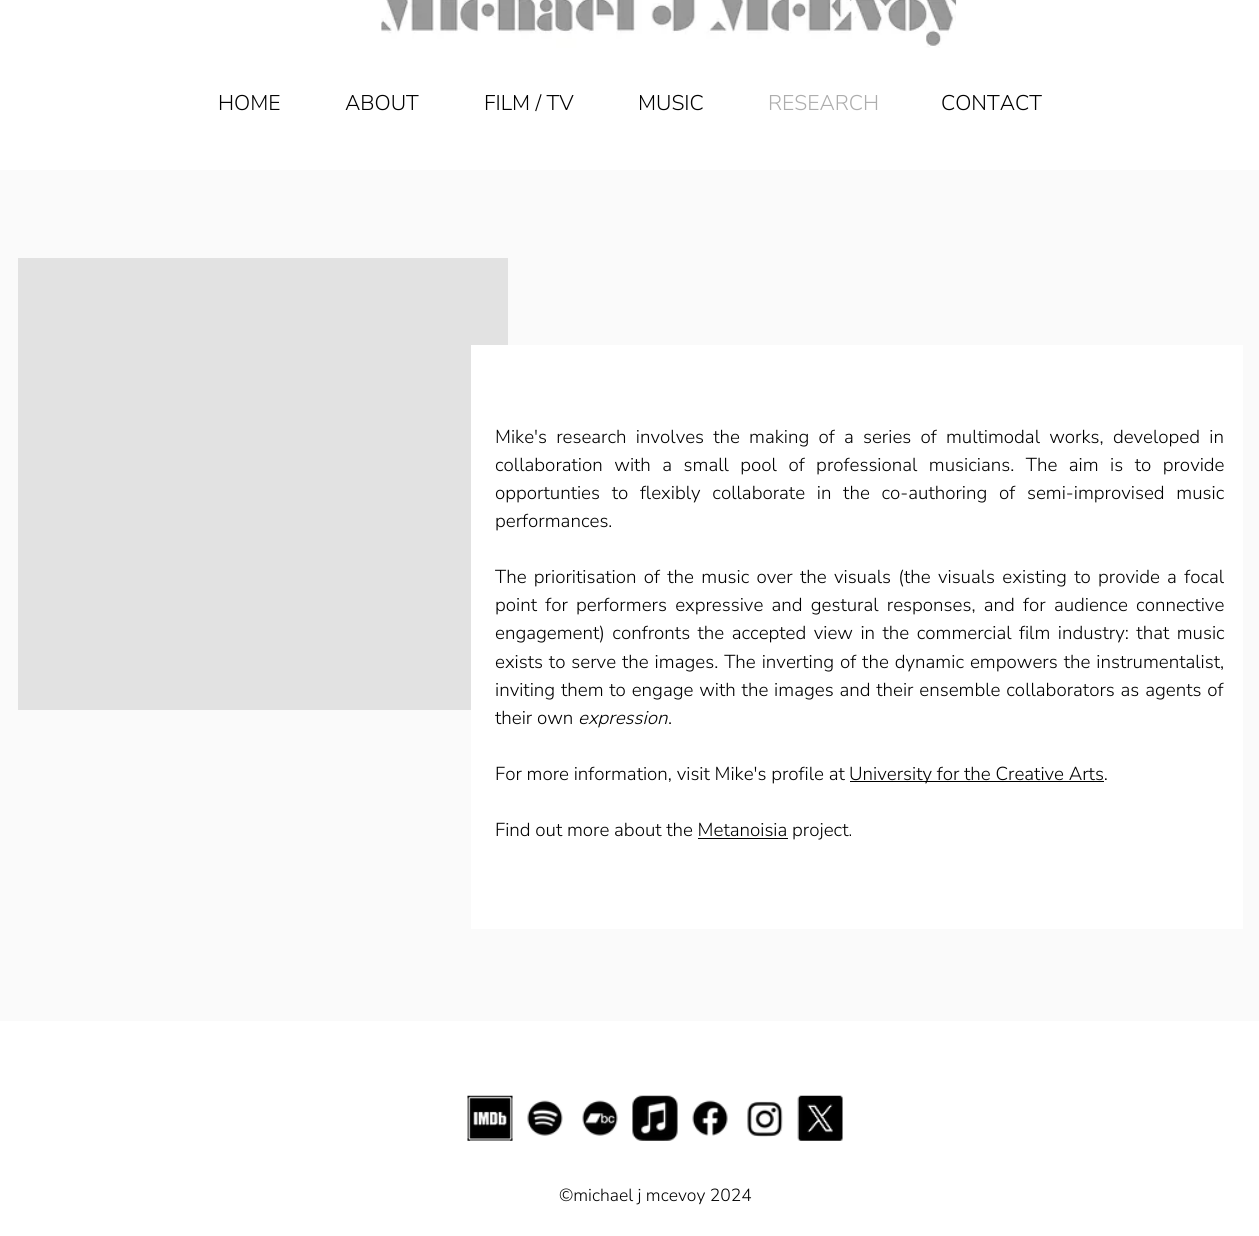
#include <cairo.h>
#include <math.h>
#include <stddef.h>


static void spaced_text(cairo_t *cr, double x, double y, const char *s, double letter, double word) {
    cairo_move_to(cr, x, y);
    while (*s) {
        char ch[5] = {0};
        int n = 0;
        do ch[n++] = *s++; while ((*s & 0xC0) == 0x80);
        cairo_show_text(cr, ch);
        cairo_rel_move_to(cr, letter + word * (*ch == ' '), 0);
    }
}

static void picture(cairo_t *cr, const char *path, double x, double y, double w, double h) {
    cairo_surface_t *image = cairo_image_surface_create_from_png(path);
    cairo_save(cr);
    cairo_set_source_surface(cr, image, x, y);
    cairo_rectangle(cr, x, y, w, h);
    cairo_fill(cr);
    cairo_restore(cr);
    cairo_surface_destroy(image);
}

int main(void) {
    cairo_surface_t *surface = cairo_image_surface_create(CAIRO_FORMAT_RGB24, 1259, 1236);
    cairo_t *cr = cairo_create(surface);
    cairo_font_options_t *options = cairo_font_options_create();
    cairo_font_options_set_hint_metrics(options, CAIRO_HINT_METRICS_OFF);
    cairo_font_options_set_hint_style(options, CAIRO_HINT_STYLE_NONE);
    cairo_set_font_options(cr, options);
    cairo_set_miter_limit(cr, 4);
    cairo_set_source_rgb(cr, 1, 1, 1);
    cairo_paint(cr);
    picture(cr, "img1.png", 381, 0, 576, 48);
    cairo_select_font_face(cr, "Nunito Sans Light", CAIRO_FONT_SLANT_NORMAL, CAIRO_FONT_WEIGHT_NORMAL);
    cairo_set_font_size(cr, 21.25);
    cairo_set_source_rgb(cr, 0, 0, 0);
    cairo_move_to(cr, 218, 110);
    cairo_show_text(cr, "HOME");
    cairo_move_to(cr, 345, 110);
    cairo_show_text(cr, "ABOUT");
    cairo_move_to(cr, 484, 110);
    cairo_show_text(cr, "FILM / TV");
    cairo_move_to(cr, 638, 110);
    cairo_show_text(cr, "MUSIC");
    cairo_set_source_rgb(cr, 0.678, 0.678, 0.678);
    cairo_move_to(cr, 768, 110);
    cairo_show_text(cr, "RESEARCH");
    cairo_set_source_rgb(cr, 0, 0, 0);
    cairo_move_to(cr, 941, 110);
    cairo_show_text(cr, "CONTACT");
    cairo_set_source_rgb(cr, 0.98, 0.98, 0.98);
    cairo_rectangle(cr, 0, 170, 1259, 851);
    cairo_fill(cr);
    cairo_set_source_rgb(cr, 0.886, 0.886, 0.886);
    cairo_rectangle(cr, 18, 258, 490, 452);
    cairo_fill(cr);
    cairo_set_source_rgb(cr, 1, 1, 1);
    cairo_rectangle(cr, 471, 345, 772, 584);
    cairo_fill(cr);
    cairo_set_font_size(cr, 18.75);
    cairo_set_source_rgb(cr, 0, 0, 0);
    spaced_text(cr, 495, 443, "Mike's research involves the making of a series of multimodal works, developed in", 0, 4.5);
    spaced_text(cr, 495, 471, "collaboration with a small pool of professional musicians. The aim is to provide", 0, 6.75);
    spaced_text(cr, 495, 499, "opportunties to flexibly collaborate in the co-authoring of semi-improvised music", 0, 7);
    cairo_move_to(cr, 495, 527);
    cairo_show_text(cr, "performances.");
    spaced_text(cr, 495, 583, "The prioritisation of the music over the visuals (the visuals existing to provide a focal", 0, 2.6);
    spaced_text(cr, 495, 611, "point for performers expressive and gestural responses, and for audience connective", 0, 3.5);
    spaced_text(cr, 495, 639, "engagement) confronts the accepted view in the commercial film industry: that music", 0, 2.75);
    spaced_text(cr, 495, 668, "exists to serve the images. The inverting of the dynamic empowers the instrumentalist,", 0, 1.25);
    spaced_text(cr, 495, 696, "inviting them to engage with the images and their ensemble collaborators as agents of", 0, 1.1);
    cairo_move_to(cr, 495, 724);
    cairo_show_text(cr, "their own");
    cairo_select_font_face(cr, "Nunito Sans Light", CAIRO_FONT_SLANT_ITALIC, CAIRO_FONT_WEIGHT_NORMAL);
    cairo_move_to(cr, 578, 724);
    cairo_show_text(cr, "expression");
    cairo_select_font_face(cr, "Nunito Sans Light", CAIRO_FONT_SLANT_NORMAL, CAIRO_FONT_WEIGHT_NORMAL);
    cairo_move_to(cr, 668, 724);
    cairo_show_text(cr, ".");
    cairo_move_to(cr, 495, 780);
    cairo_show_text(cr, "For more information, visit Mike's profile at");
    cairo_rectangle(cr, 850, 781, 254, 1);
    cairo_fill(cr);
    cairo_move_to(cr, 849, 780);
    cairo_show_text(cr, "University for the Creative Arts.");
    cairo_move_to(cr, 495, 836);
    cairo_show_text(cr, "Find out more about the Metanoisia project.");
    cairo_rectangle(cr, 698, 838, 90, 1);
    cairo_fill(cr);
    picture(cr, "img2.png", 467, 1095, 46, 46);
    picture(cr, "img3.png", 527, 1100, 36, 36);
    picture(cr, "img4.png", 582, 1100, 36, 36);
    picture(cr, "img5.png", 632, 1095, 46, 46);
    picture(cr, "img6.png", 692, 1100, 36, 36);
    picture(cr, "img7.png", 747, 1101, 36, 36);
    picture(cr, "img8.png", 797, 1095, 46, 46);
    cairo_set_font_size(cr, 17.5);
    cairo_move_to(cr, 559, 1201);
    cairo_show_text(cr, "©michael j mcevoy 2024");
    cairo_surface_write_to_png(surface, "page.png");
    cairo_font_options_destroy(options);
    cairo_destroy(cr);
    cairo_surface_destroy(surface);
    return 0;
}
